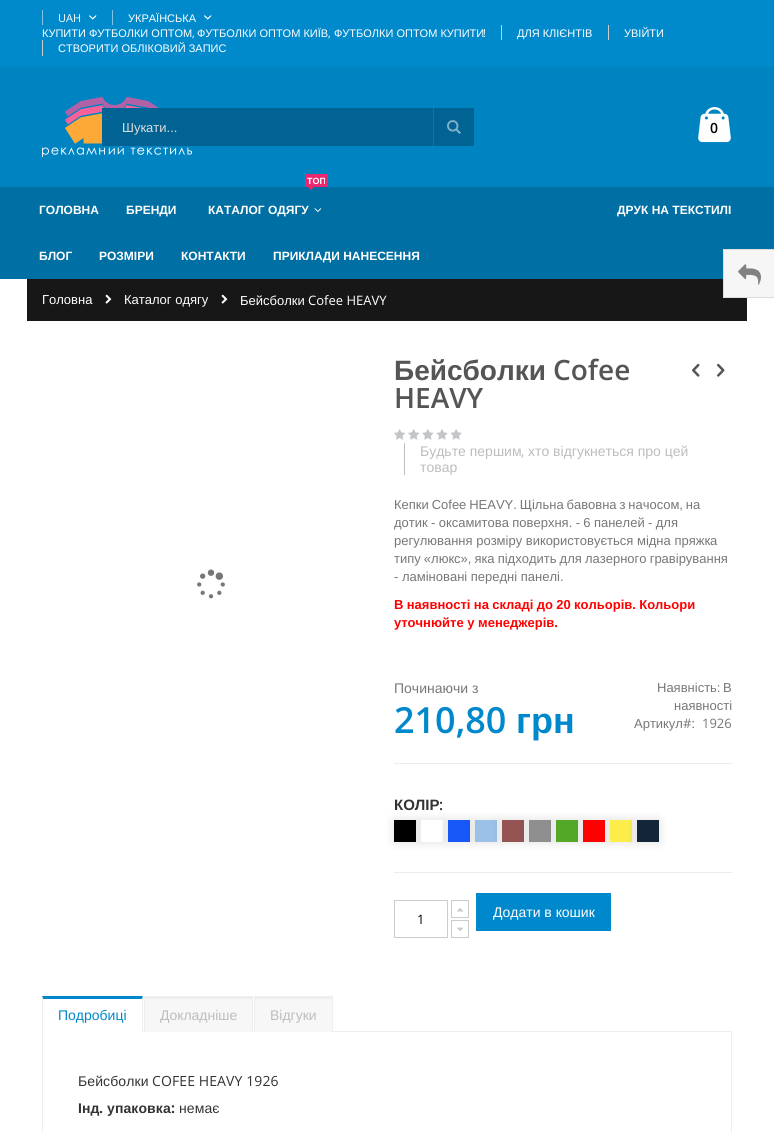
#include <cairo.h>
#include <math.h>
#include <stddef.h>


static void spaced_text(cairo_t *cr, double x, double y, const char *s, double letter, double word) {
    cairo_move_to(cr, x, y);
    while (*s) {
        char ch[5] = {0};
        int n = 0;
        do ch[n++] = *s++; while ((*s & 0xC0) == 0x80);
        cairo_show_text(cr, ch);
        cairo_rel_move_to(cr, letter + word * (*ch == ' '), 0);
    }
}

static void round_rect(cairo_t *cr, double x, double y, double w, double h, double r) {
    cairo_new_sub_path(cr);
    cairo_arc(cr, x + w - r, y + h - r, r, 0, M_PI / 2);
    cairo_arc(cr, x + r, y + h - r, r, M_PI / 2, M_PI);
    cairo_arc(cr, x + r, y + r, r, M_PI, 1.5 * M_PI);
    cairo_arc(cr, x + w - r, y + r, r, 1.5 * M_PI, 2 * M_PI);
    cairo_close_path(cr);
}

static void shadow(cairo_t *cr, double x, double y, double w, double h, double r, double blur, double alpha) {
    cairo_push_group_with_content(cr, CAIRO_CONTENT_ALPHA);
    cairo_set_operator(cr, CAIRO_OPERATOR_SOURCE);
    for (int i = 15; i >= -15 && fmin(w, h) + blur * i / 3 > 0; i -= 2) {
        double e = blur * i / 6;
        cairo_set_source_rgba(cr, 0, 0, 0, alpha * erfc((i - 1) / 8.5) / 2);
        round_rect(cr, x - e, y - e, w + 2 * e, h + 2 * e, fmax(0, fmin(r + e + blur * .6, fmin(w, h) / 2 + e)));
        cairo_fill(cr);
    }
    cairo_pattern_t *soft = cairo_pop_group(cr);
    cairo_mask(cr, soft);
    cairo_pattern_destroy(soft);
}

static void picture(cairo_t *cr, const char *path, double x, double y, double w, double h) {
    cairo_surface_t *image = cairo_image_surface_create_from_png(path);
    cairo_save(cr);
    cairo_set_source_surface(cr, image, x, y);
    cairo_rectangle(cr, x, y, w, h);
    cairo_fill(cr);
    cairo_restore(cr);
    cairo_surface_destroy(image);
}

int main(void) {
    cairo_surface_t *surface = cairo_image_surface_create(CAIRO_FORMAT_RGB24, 774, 1133);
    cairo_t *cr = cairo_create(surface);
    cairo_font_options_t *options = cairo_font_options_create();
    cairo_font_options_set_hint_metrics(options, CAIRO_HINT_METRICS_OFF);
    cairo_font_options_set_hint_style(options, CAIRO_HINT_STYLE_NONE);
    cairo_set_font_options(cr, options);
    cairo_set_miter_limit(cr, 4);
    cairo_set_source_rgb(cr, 1, 1, 1);
    cairo_paint(cr);
    cairo_set_source_rgb(cr, 0, 0.514, 0.757);
    cairo_rectangle(cr, 0, 67, 774, 120);
    cairo_fill(cr);
    cairo_set_source_rgb(cr, 0.102, 0.561, 0.78);
    cairo_rectangle(cr, 433, 107, 1, 40);
    cairo_fill(cr);
    cairo_set_source_rgb(cr, 0, 0.541, 0.8);
    cairo_rectangle(cr, 0, 0, 774, 67);
    cairo_fill(cr);
    cairo_set_source_rgb(cr, 0.502, 0.773, 0.902);
    cairo_rectangle(cr, 42, 10, 1, 15);
    cairo_fill(cr);
    cairo_select_font_face(cr, "Open Sans", CAIRO_FONT_SLANT_NORMAL, CAIRO_FONT_WEIGHT_NORMAL);
    cairo_set_font_size(cr, 11);
    cairo_set_source_rgb(cr, 1, 1, 1);
    cairo_move_to(cr, 58, 22);
    cairo_show_text(cr, "UAH");
    picture(cr, "img1.png", 89, 15, 8, 5);
    cairo_set_source_rgb(cr, 0.502, 0.773, 0.902);
    cairo_rectangle(cr, 112, 10, 1, 15);
    cairo_fill(cr);
    cairo_select_font_face(cr, "Liberation Sans", CAIRO_FONT_SLANT_NORMAL, CAIRO_FONT_WEIGHT_NORMAL);
    cairo_set_source_rgb(cr, 1, 1, 1);
    cairo_move_to(cr, 128, 22);
    cairo_show_text(cr, "УКРАЇНСЬКА");
    picture(cr, "img1.png", 204, 15, 8, 5);
    cairo_move_to(cr, 42, 37);
    cairo_show_text(cr, "КУПИТИ ФУТБОЛКИ ОПТОМ");
    cairo_select_font_face(cr, "Open Sans", CAIRO_FONT_SLANT_NORMAL, CAIRO_FONT_WEIGHT_NORMAL);
    cairo_move_to(cr, 192, 37);
    cairo_show_text(cr, ",");
    cairo_select_font_face(cr, "Liberation Sans", CAIRO_FONT_SLANT_NORMAL, CAIRO_FONT_WEIGHT_NORMAL);
    cairo_move_to(cr, 197, 37);
    cairo_show_text(cr, "ФУТБОЛКИ ОПТОМ КИЇВ");
    cairo_select_font_face(cr, "Open Sans", CAIRO_FONT_SLANT_NORMAL, CAIRO_FONT_WEIGHT_NORMAL);
    cairo_move_to(cr, 328, 37);
    cairo_show_text(cr, ",");
    cairo_select_font_face(cr, "Liberation Sans", CAIRO_FONT_SLANT_NORMAL, CAIRO_FONT_WEIGHT_NORMAL);
    cairo_move_to(cr, 334, 37);
    cairo_show_text(cr, "ФУТБОЛКИ ОПТОМ КУПИТИ");
    cairo_select_font_face(cr, "Open Sans", CAIRO_FONT_SLANT_NORMAL, CAIRO_FONT_WEIGHT_NORMAL);
    cairo_move_to(cr, 483, 37);
    cairo_show_text(cr, "!");
    cairo_set_source_rgb(cr, 0.8, 0.8, 0.8);
    cairo_rectangle(cr, 501, 25, 1, 15);
    cairo_fill(cr);
    cairo_select_font_face(cr, "Liberation Sans", CAIRO_FONT_SLANT_NORMAL, CAIRO_FONT_WEIGHT_NORMAL);
    cairo_set_source_rgb(cr, 1, 1, 1);
    cairo_move_to(cr, 517, 37);
    cairo_show_text(cr, "ДЛЯ КЛІЄНТІВ");
    cairo_set_source_rgb(cr, 0.8, 0.8, 0.8);
    cairo_rectangle(cr, 608, 25, 1, 15);
    cairo_fill(cr);
    cairo_set_source_rgb(cr, 1, 1, 1);
    cairo_move_to(cr, 624, 37);
    cairo_show_text(cr, "УВІЙТИ");
    cairo_set_source_rgb(cr, 0.8, 0.8, 0.8);
    cairo_rectangle(cr, 42, 40, 1, 16);
    cairo_fill(cr);
    cairo_set_source_rgb(cr, 1, 1, 1);
    cairo_move_to(cr, 58, 52);
    cairo_show_text(cr, "СТВОРИТИ ОБЛІКОВИЙ ЗАПИС");
    picture(cr, "img2.png", 42, 97, 150, 60);
    picture(cr, "img3.png", 698, 107, 33, 36);
    cairo_select_font_face(cr, "Open Sans SemiBold", CAIRO_FONT_SLANT_NORMAL, CAIRO_FONT_WEIGHT_NORMAL);
    cairo_set_font_size(cr, 14);
    cairo_set_source_rgb(cr, 0, 0, 0);
    cairo_move_to(cr, 710, 133);
    cairo_show_text(cr, "0");
    cairo_set_source_rgb(cr, 0, 0.388, 0.576);
    cairo_rectangle(cr, 102, 108, 372, 38);
    cairo_fill(cr);
    cairo_set_source_rgb(cr, 0.102, 0.451, 0.62);
    cairo_rectangle(cr, 433, 108, 1, 38);
    cairo_fill(cr);
    cairo_select_font_face(cr, "Liberation Sans", CAIRO_FONT_SLANT_NORMAL, CAIRO_FONT_WEIGHT_NORMAL);
    cairo_set_font_size(cr, 13);
    cairo_set_source_rgb(cr, 0.867, 0.867, 0.867);
    cairo_move_to(cr, 122, 132);
    cairo_show_text(cr, "Шукати...");
    picture(cr, "img4.png", 447, 120, 14, 14);
    cairo_set_source_rgb(cr, 0, 0.435, 0.643);
    cairo_rectangle(cr, 0, 187, 774, 92);
    cairo_fill(cr);
    cairo_select_font_face(cr, "Liberation Sans", CAIRO_FONT_SLANT_NORMAL, CAIRO_FONT_WEIGHT_BOLD);
    cairo_set_font_size(cr, 12);
    cairo_set_source_rgb(cr, 1, 1, 1);
    cairo_move_to(cr, 39, 214);
    cairo_show_text(cr, "ГОЛОВНА");
    cairo_move_to(cr, 126, 214);
    cairo_show_text(cr, "БРЕНДИ");
    cairo_set_source_rgb(cr, 0.922, 0.153, 0.443);
    cairo_rectangle(cr, 305, 174, 23, 13);
    cairo_fill(cr);
    cairo_set_font_size(cr, 9);
    cairo_set_source_rgb(cr, 1, 1, 1);
    cairo_move_to(cr, 307, 184);
    cairo_show_text(cr, "ТОП");
    cairo_set_source_rgb(cr, 0.922, 0.153, 0.443);
    cairo_new_path(cr);
    cairo_move_to(cr, 308, 187);
    cairo_line_to(cr, 314, 187);
    cairo_line_to(cr, 311, 190);
    cairo_close_path(cr);
    cairo_fill(cr);
    cairo_set_font_size(cr, 12);
    cairo_set_source_rgb(cr, 1, 1, 1);
    cairo_move_to(cr, 208, 214);
    cairo_show_text(cr, "КАТАЛОГ ОДЯГУ");
    picture(cr, "img5.png", 314, 208, 8, 4);
    cairo_move_to(cr, 617, 214);
    cairo_show_text(cr, "ДРУК НА ТЕКСТИЛІ");
    cairo_move_to(cr, 39, 260);
    cairo_show_text(cr, "БЛОГ");
    cairo_move_to(cr, 99, 260);
    cairo_show_text(cr, "РОЗМІРИ");
    cairo_move_to(cr, 181, 260);
    cairo_show_text(cr, "КОНТАКТИ");
    cairo_move_to(cr, 273, 260);
    cairo_show_text(cr, "ПРИКЛАДИ НАНЕСЕННЯ");
    cairo_set_source_rgb(cr, 0.09, 0.09, 0.09);
    cairo_rectangle(cr, 27, 279, 720, 42);
    cairo_fill(cr);
    cairo_select_font_face(cr, "Liberation Sans", CAIRO_FONT_SLANT_NORMAL, CAIRO_FONT_WEIGHT_NORMAL);
    cairo_set_font_size(cr, 13);
    cairo_set_source_rgb(cr, 1, 1, 1);
    cairo_move_to(cr, 42, 304);
    cairo_show_text(cr, "Головна");
    picture(cr, "img6.png", 105, 294, 7, 10);
    cairo_move_to(cr, 124, 304);
    cairo_show_text(cr, "Каталог одягу");
    picture(cr, "img6.png", 221, 294, 7, 10);
    cairo_move_to(cr, 240, 305);
    cairo_show_text(cr, "Бейсболки");
    cairo_select_font_face(cr, "Open Sans", CAIRO_FONT_SLANT_NORMAL, CAIRO_FONT_WEIGHT_NORMAL);
    cairo_move_to(cr, 308, 305);
    cairo_show_text(cr, "Cofee HEAVY");
    cairo_set_source_rgb(cr, 0.961, 0.961, 0.961);
    cairo_rectangle(cr, 724, 250, 50, 47);
    cairo_fill(cr);
    cairo_set_source_rgb(cr, 0.863, 0.863, 0.855);
    cairo_rectangle(cr, 723, 249, 51, 1);
    cairo_fill(cr);
    cairo_rectangle(cr, 723, 297, 51, 1);
    cairo_fill(cr);
    cairo_rectangle(cr, 723, 249, 1, 49);
    cairo_fill(cr);
    picture(cr, "img7.png", 738, 264, 23, 21);
    picture(cr, "img8.png", 197, 569, 28, 30);
    cairo_select_font_face(cr, "Liberation Sans", CAIRO_FONT_SLANT_NORMAL, CAIRO_FONT_WEIGHT_BOLD);
    cairo_set_font_size(cr, 28);
    cairo_set_source_rgb(cr, 0.333, 0.333, 0.333);
    cairo_move_to(cr, 394, 380);
    cairo_show_text(cr, "Бейсболки");
    cairo_select_font_face(cr, "Open Sans SemiBold", CAIRO_FONT_SLANT_NORMAL, CAIRO_FONT_WEIGHT_NORMAL);
    cairo_move_to(cr, 553, 380);
    cairo_show_text(cr, "Cofee");
    cairo_move_to(cr, 394, 408);
    cairo_show_text(cr, "HEAVY");
    picture(cr, "img9.png", 692, 363, 8, 14);
    picture(cr, "img10.png", 717, 363, 8, 14);
    picture(cr, "img11.png", 394, 429, 68, 11);
    cairo_set_source_rgb(cr, 0.741, 0.741, 0.741);
    cairo_rectangle(cr, 404, 443, 1, 32);
    cairo_fill(cr);
    cairo_select_font_face(cr, "Liberation Sans", CAIRO_FONT_SLANT_NORMAL, CAIRO_FONT_WEIGHT_NORMAL);
    cairo_set_font_size(cr, 14);
    cairo_move_to(cr, 420, 456);
    cairo_show_text(cr, "Будьте першим");
    cairo_select_font_face(cr, "Open Sans", CAIRO_FONT_SLANT_NORMAL, CAIRO_FONT_WEIGHT_NORMAL);
    cairo_move_to(cr, 521, 456);
    cairo_show_text(cr, ",");
    cairo_select_font_face(cr, "Liberation Sans", CAIRO_FONT_SLANT_NORMAL, CAIRO_FONT_WEIGHT_NORMAL);
    cairo_move_to(cr, 528, 456);
    cairo_show_text(cr, "хто відгукнеться про цей");
    cairo_move_to(cr, 420, 472);
    cairo_show_text(cr, "товар");
    cairo_set_font_size(cr, 13);
    cairo_set_source_rgb(cr, 0.467, 0.467, 0.467);
    spaced_text(cr, 394, 509, "Кепки Cofee HEAVY. Щільна бавовна з начосом, на", 0, -0.75);
    spaced_text(cr, 394, 527, "дотик - оксамитова поверхня. - 6 панелей - для", 0, -0.25);
    cairo_move_to(cr, 394, 545);
    cairo_show_text(cr, "регулювання розміру використовується мідна пряжка");
    spaced_text(cr, 394, 563, "типу «люкс», яка підходить для лазерного гравірування", 0, -0.5);
    cairo_move_to(cr, 394, 581);
    cairo_show_text(cr, "- ламіновані передні панелі.");
    cairo_select_font_face(cr, "Liberation Sans", CAIRO_FONT_SLANT_NORMAL, CAIRO_FONT_WEIGHT_BOLD);
    cairo_set_source_rgb(cr, 1, 0, 0);
    spaced_text(cr, 394, 609, "В наявності на складі до 20 кольорів. Кольори", 0, -0.25);
    cairo_move_to(cr, 394, 627);
    cairo_show_text(cr, "уточнюйте у менеджерів.");
    cairo_set_source_rgb(cr, 0.922, 0.922, 0.922);
    cairo_rectangle(cr, 394, 763, 338, 1);
    cairo_fill(cr);
    cairo_select_font_face(cr, "Liberation Sans", CAIRO_FONT_SLANT_NORMAL, CAIRO_FONT_WEIGHT_NORMAL);
    cairo_set_font_size(cr, 14);
    cairo_set_source_rgb(cr, 0.467, 0.467, 0.467);
    cairo_move_to(cr, 394, 693);
    cairo_show_text(cr, "Починаючи з");
    cairo_select_font_face(cr, "Open Sans SemiBold", CAIRO_FONT_SLANT_NORMAL, CAIRO_FONT_WEIGHT_NORMAL);
    cairo_set_font_size(cr, 36);
    cairo_set_source_rgb(cr, 0, 0.533, 0.8);
    cairo_move_to(cr, 394, 733);
    cairo_show_text(cr, "210,80");
    cairo_select_font_face(cr, "Liberation Sans", CAIRO_FONT_SLANT_NORMAL, CAIRO_FONT_WEIGHT_BOLD);
    cairo_move_to(cr, 516, 733);
    cairo_show_text(cr, "грн");
    cairo_select_font_face(cr, "Liberation Sans", CAIRO_FONT_SLANT_NORMAL, CAIRO_FONT_WEIGHT_NORMAL);
    cairo_set_font_size(cr, 13);
    cairo_set_source_rgb(cr, 0.467, 0.467, 0.467);
    cairo_move_to(cr, 657, 692);
    cairo_show_text(cr, "Наявність:");
    cairo_move_to(cr, 723, 692);
    cairo_show_text(cr, "В");
    cairo_move_to(cr, 674, 710);
    cairo_show_text(cr, "наявності");
    cairo_move_to(cr, 634, 728);
    cairo_show_text(cr, "Артикул");
    cairo_select_font_face(cr, "Open Sans", CAIRO_FONT_SLANT_NORMAL, CAIRO_FONT_WEIGHT_NORMAL);
    cairo_move_to(cr, 683, 728);
    cairo_show_text(cr, "#:");
    cairo_move_to(cr, 702, 728);
    cairo_show_text(cr, "1926");
    cairo_set_source_rgb(cr, 0.922, 0.922, 0.922);
    cairo_rectangle(cr, 394, 872, 338, 1);
    cairo_fill(cr);
    cairo_select_font_face(cr, "Liberation Sans", CAIRO_FONT_SLANT_NORMAL, CAIRO_FONT_WEIGHT_BOLD);
    cairo_set_font_size(cr, 15);
    cairo_set_source_rgb(cr, 0.2, 0.2, 0.2);
    cairo_move_to(cr, 394, 810);
    cairo_show_text(cr, "КОЛІР");
    cairo_select_font_face(cr, "Open Sans SemiBold", CAIRO_FONT_SLANT_NORMAL, CAIRO_FONT_WEIGHT_NORMAL);
    cairo_move_to(cr, 439, 810);
    cairo_show_text(cr, ":");
    cairo_set_source_rgb(cr, 0, 0, 0);
    shadow(cr, 394, 820, 22, 22, 0, 5, 0.13);
    cairo_set_source_rgb(cr, 0, 0, 0);
    cairo_rectangle(cr, 394, 820, 22, 22);
    cairo_fill(cr);
    cairo_set_source_rgb(cr, 0, 0, 0);
    shadow(cr, 421, 820, 22, 22, 0, 5, 0.13);
    cairo_set_source_rgb(cr, 1, 1, 1);
    cairo_rectangle(cr, 421, 820, 22, 22);
    cairo_fill(cr);
    cairo_set_source_rgb(cr, 0, 0, 0);
    shadow(cr, 448, 820, 22, 22, 0, 5, 0.13);
    cairo_set_source_rgb(cr, 0.094, 0.341, 0.969);
    cairo_rectangle(cr, 448, 820, 22, 22);
    cairo_fill(cr);
    cairo_set_source_rgb(cr, 0, 0, 0);
    shadow(cr, 475, 820, 22, 22, 0, 5, 0.13);
    cairo_set_source_rgb(cr, 0.608, 0.757, 0.91);
    cairo_rectangle(cr, 475, 820, 22, 22);
    cairo_fill(cr);
    cairo_set_source_rgb(cr, 0, 0, 0);
    shadow(cr, 502, 820, 22, 22, 0, 5, 0.13);
    cairo_set_source_rgb(cr, 0.58, 0.329, 0.329);
    cairo_rectangle(cr, 502, 820, 22, 22);
    cairo_fill(cr);
    cairo_set_source_rgb(cr, 0, 0, 0);
    shadow(cr, 529, 820, 22, 22, 0, 5, 0.13);
    cairo_set_source_rgb(cr, 0.561, 0.561, 0.561);
    cairo_rectangle(cr, 529, 820, 22, 22);
    cairo_fill(cr);
    cairo_set_source_rgb(cr, 0, 0, 0);
    shadow(cr, 556, 820, 22, 22, 0, 5, 0.13);
    cairo_set_source_rgb(cr, 0.325, 0.659, 0.157);
    cairo_rectangle(cr, 556, 820, 22, 22);
    cairo_fill(cr);
    cairo_set_source_rgb(cr, 0, 0, 0);
    shadow(cr, 583, 820, 22, 22, 0, 5, 0.13);
    cairo_set_source_rgb(cr, 1, 0, 0);
    cairo_rectangle(cr, 583, 820, 22, 22);
    cairo_fill(cr);
    cairo_set_source_rgb(cr, 0, 0, 0);
    shadow(cr, 610, 820, 22, 22, 0, 5, 0.13);
    cairo_set_source_rgb(cr, 0.988, 0.929, 0.29);
    cairo_rectangle(cr, 610, 820, 22, 22);
    cairo_fill(cr);
    cairo_set_source_rgb(cr, 0, 0, 0);
    shadow(cr, 637, 820, 22, 22, 0, 5, 0.13);
    cairo_set_source_rgb(cr, 0.075, 0.149, 0.216);
    cairo_rectangle(cr, 637, 820, 22, 22);
    cairo_fill(cr);
    cairo_rectangle(cr, 394.5, 900.5, 53, 37);
    cairo_set_source_rgb(cr, 0.8, 0.8, 0.8);
    cairo_set_line_width(cr, 1);
    cairo_stroke(cr);
    cairo_select_font_face(cr, "Open Sans", CAIRO_FONT_SLANT_NORMAL, CAIRO_FONT_WEIGHT_NORMAL);
    cairo_set_font_size(cr, 13);
    cairo_set_source_rgb(cr, 0, 0, 0);
    cairo_move_to(cr, 417, 924);
    cairo_show_text(cr, "1");
    cairo_rectangle(cr, 451.5, 900.5, 17, 17);
    cairo_set_source_rgb(cr, 0.8, 0.8, 0.8);
    cairo_stroke(cr);
    picture(cr, "img12.png", 457, 908, 7, 4);
    cairo_rectangle(cr, 451.5, 920.5, 17, 17);
    cairo_stroke(cr);
    picture(cr, "img13.png", 457, 927, 6, 4);
    cairo_set_source_rgb(cr, 0, 0.533, 0.8);
    cairo_rectangle(cr, 476, 893, 135, 38);
    cairo_fill(cr);
    cairo_select_font_face(cr, "Liberation Sans", CAIRO_FONT_SLANT_NORMAL, CAIRO_FONT_WEIGHT_NORMAL);
    cairo_set_font_size(cr, 14);
    cairo_set_source_rgb(cr, 1, 1, 1);
    cairo_move_to(cr, 493, 917);
    cairo_show_text(cr, "Додати в кошик");
    cairo_rectangle(cr, 42.5, 1031.5, 689, 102);
    cairo_set_source_rgb(cr, 0.933, 0.933, 0.933);
    cairo_stroke(cr);
    cairo_set_source_rgb(cr, 1, 1, 1);
    cairo_rectangle(cr, 43, 1031, 99, 1);
    cairo_fill(cr);
    cairo_set_source_rgb(cr, 0, 0.533, 0.8);
    cairo_new_path(cr);
    cairo_move_to(cr, 42, 996);
    cairo_line_to(cr, 143, 996);
    cairo_line_to(cr, 142, 999);
    cairo_line_to(cr, 43, 999);
    cairo_close_path(cr);
    cairo_fill(cr);
    cairo_set_source_rgb(cr, 0.933, 0.933, 0.933);
    cairo_new_path(cr);
    cairo_move_to(cr, 143, 996);
    cairo_line_to(cr, 143, 1032);
    cairo_line_to(cr, 142, 1032);
    cairo_line_to(cr, 142, 999);
    cairo_close_path(cr);
    cairo_fill(cr);
    cairo_new_path(cr);
    cairo_move_to(cr, 42, 1032);
    cairo_line_to(cr, 42, 996);
    cairo_line_to(cr, 43, 999);
    cairo_line_to(cr, 43, 1032);
    cairo_close_path(cr);
    cairo_fill(cr);
    cairo_set_source_rgb(cr, 0, 0.533, 0.8);
    cairo_move_to(cr, 58, 1020);
    cairo_show_text(cr, "Подробиці");
    cairo_set_source_rgb(cr, 0.965, 0.965, 0.965);
    cairo_rectangle(cr, 145, 999, 107, 33);
    cairo_fill(cr);
    cairo_set_source_rgb(cr, 0.933, 0.933, 0.933);
    cairo_rectangle(cr, 144, 996, 109, 3);
    cairo_fill(cr);
    cairo_rectangle(cr, 252, 996, 1, 36);
    cairo_fill(cr);
    cairo_rectangle(cr, 144, 996, 1, 36);
    cairo_fill(cr);
    cairo_set_source_rgb(cr, 0.741, 0.741, 0.741);
    cairo_move_to(cr, 160, 1020);
    cairo_show_text(cr, "Докладніше");
    cairo_set_source_rgb(cr, 0.965, 0.965, 0.965);
    cairo_rectangle(cr, 255, 999, 77, 33);
    cairo_fill(cr);
    cairo_set_source_rgb(cr, 0.933, 0.933, 0.933);
    cairo_rectangle(cr, 254, 996, 79, 3);
    cairo_fill(cr);
    cairo_rectangle(cr, 332, 996, 1, 36);
    cairo_fill(cr);
    cairo_rectangle(cr, 254, 996, 1, 36);
    cairo_fill(cr);
    cairo_set_source_rgb(cr, 0.741, 0.741, 0.741);
    cairo_move_to(cr, 270, 1020);
    cairo_show_text(cr, "Відгуки");
    cairo_set_source_rgb(cr, 0.2, 0.2, 0.2);
    spaced_text(cr, 78, 1086, "Бейсболки", 0.1, 0);
    cairo_select_font_face(cr, "Open Sans", CAIRO_FONT_SLANT_NORMAL, CAIRO_FONT_WEIGHT_NORMAL);
    spaced_text(cr, 152, 1086, "COFEE HEAVY 1926", 0.1, 0);
    cairo_select_font_face(cr, "Liberation Sans", CAIRO_FONT_SLANT_NORMAL, CAIRO_FONT_WEIGHT_BOLD);
    spaced_text(cr, 78, 1113, "Інд", 0.1, 0);
    cairo_select_font_face(cr, "Open Sans", CAIRO_FONT_SLANT_NORMAL, CAIRO_FONT_WEIGHT_BOLD);
    spaced_text(cr, 99, 1113, ".", 0.1, 0);
    cairo_select_font_face(cr, "Liberation Sans", CAIRO_FONT_SLANT_NORMAL, CAIRO_FONT_WEIGHT_BOLD);
    spaced_text(cr, 107, 1113, "упаковка", 0.1, 0);
    cairo_select_font_face(cr, "Open Sans", CAIRO_FONT_SLANT_NORMAL, CAIRO_FONT_WEIGHT_BOLD);
    spaced_text(cr, 171, 1113, ":", 0.1, 0);
    cairo_select_font_face(cr, "Liberation Sans", CAIRO_FONT_SLANT_NORMAL, CAIRO_FONT_WEIGHT_NORMAL);
    spaced_text(cr, 179, 1113, "немає", 0.1, 0);
    cairo_surface_write_to_png(surface, "page.png");
    cairo_font_options_destroy(options);
    cairo_destroy(cr);
    cairo_surface_destroy(surface);
    return 0;
}
